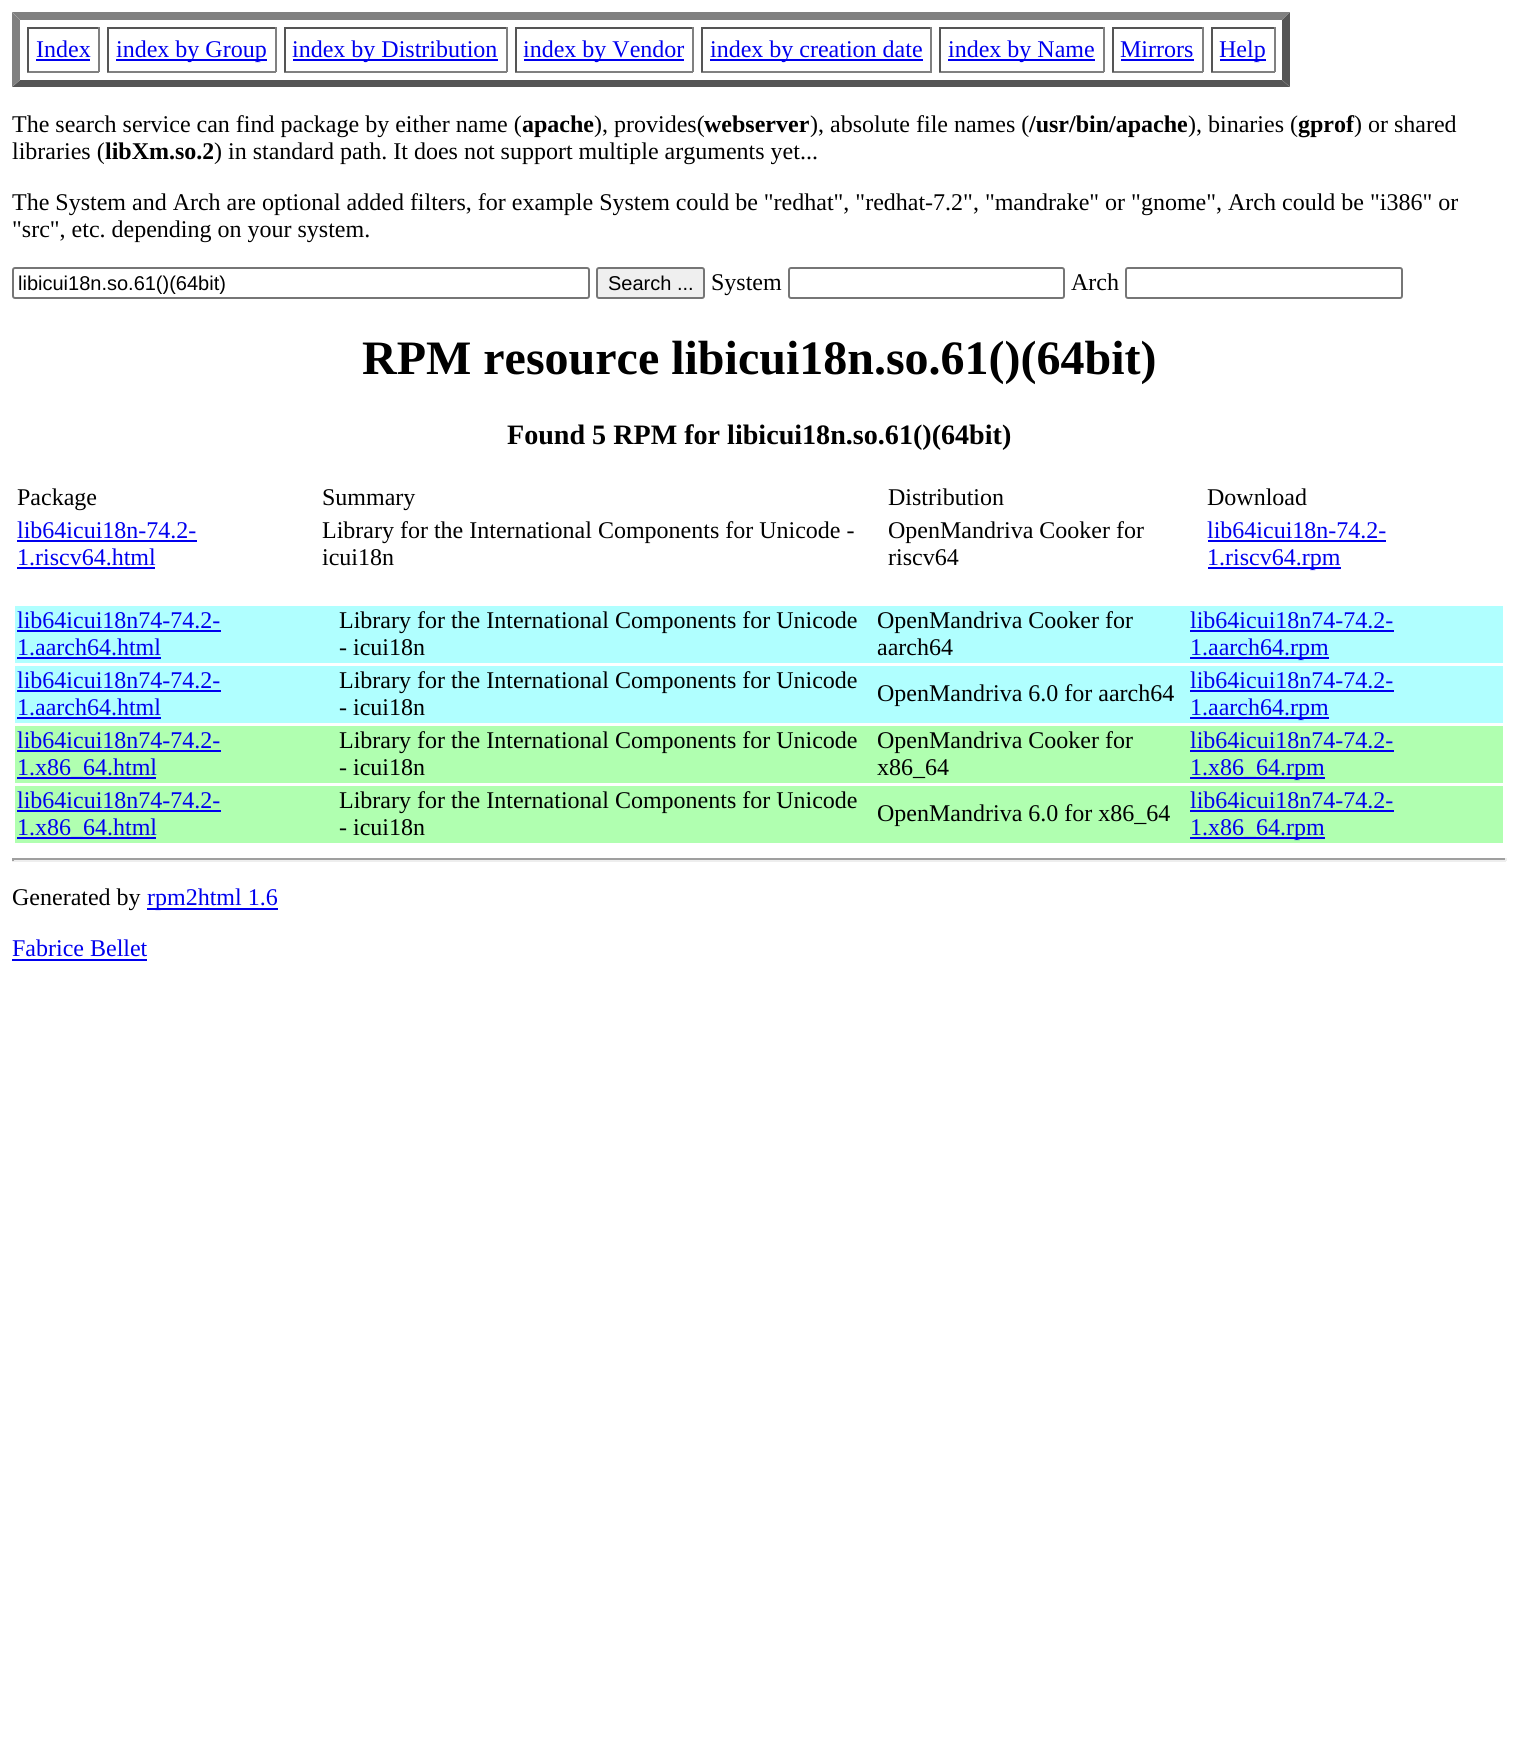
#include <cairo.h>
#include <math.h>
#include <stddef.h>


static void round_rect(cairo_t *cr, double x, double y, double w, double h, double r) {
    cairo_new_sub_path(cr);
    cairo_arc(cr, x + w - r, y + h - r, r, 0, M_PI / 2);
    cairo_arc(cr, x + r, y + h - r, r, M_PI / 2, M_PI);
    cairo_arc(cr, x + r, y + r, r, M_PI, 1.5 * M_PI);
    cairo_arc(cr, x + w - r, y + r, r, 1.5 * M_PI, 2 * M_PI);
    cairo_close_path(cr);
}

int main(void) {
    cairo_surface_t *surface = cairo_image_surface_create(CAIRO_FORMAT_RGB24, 1518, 1757);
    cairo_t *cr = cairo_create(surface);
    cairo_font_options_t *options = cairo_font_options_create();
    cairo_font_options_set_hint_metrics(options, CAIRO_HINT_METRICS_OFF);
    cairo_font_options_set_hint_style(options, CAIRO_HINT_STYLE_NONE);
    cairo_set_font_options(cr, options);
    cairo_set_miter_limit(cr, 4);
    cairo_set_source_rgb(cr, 1, 1, 1);
    cairo_paint(cr);
    cairo_set_source_rgb(cr, 0.502, 0.502, 0.502);
    cairo_new_path(cr);
    cairo_move_to(cr, 12, 12);
    cairo_line_to(cr, 1290, 12);
    cairo_line_to(cr, 1282, 20);
    cairo_line_to(cr, 20, 20);
    cairo_close_path(cr);
    cairo_fill(cr);
    cairo_set_source_rgb(cr, 0.333, 0.333, 0.333);
    cairo_new_path(cr);
    cairo_move_to(cr, 1290, 12);
    cairo_line_to(cr, 1290, 87);
    cairo_line_to(cr, 1282, 80);
    cairo_line_to(cr, 1282, 20);
    cairo_close_path(cr);
    cairo_fill(cr);
    cairo_new_path(cr);
    cairo_move_to(cr, 1290, 87);
    cairo_line_to(cr, 12, 87);
    cairo_line_to(cr, 20, 80);
    cairo_line_to(cr, 1282, 80);
    cairo_close_path(cr);
    cairo_fill(cr);
    cairo_set_source_rgb(cr, 0.502, 0.502, 0.502);
    cairo_new_path(cr);
    cairo_move_to(cr, 12, 87);
    cairo_line_to(cr, 12, 12);
    cairo_line_to(cr, 20, 20);
    cairo_line_to(cr, 20, 80);
    cairo_close_path(cr);
    cairo_fill(cr);
    cairo_set_source_rgb(cr, 0.333, 0.333, 0.333);
    cairo_rectangle(cr, 27, 27, 72, 2);
    cairo_fill(cr);
    cairo_set_source_rgb(cr, 0.502, 0.502, 0.502);
    cairo_rectangle(cr, 98, 27, 2, 45);
    cairo_fill(cr);
    cairo_rectangle(cr, 27, 71, 72, 2);
    cairo_fill(cr);
    cairo_set_source_rgb(cr, 0.333, 0.333, 0.333);
    cairo_rectangle(cr, 27, 27, 2, 45);
    cairo_fill(cr);
    cairo_select_font_face(cr, "Liberation Serif", CAIRO_FONT_SLANT_NORMAL, CAIRO_FONT_WEIGHT_NORMAL);
    cairo_set_font_size(cr, 24);
    cairo_set_source_rgb(cr, 0, 0, 0.933);
    cairo_move_to(cr, 36, 57);
    cairo_show_text(cr, "Index");
    cairo_rectangle(cr, 36, 59, 54, 2);
    cairo_fill(cr);
    cairo_set_source_rgb(cr, 0.333, 0.333, 0.333);
    cairo_rectangle(cr, 107, 27, 169, 2);
    cairo_fill(cr);
    cairo_set_source_rgb(cr, 0.502, 0.502, 0.502);
    cairo_rectangle(cr, 275, 27, 2, 45);
    cairo_fill(cr);
    cairo_rectangle(cr, 107, 71, 169, 2);
    cairo_fill(cr);
    cairo_set_source_rgb(cr, 0.333, 0.333, 0.333);
    cairo_rectangle(cr, 107, 27, 2, 45);
    cairo_fill(cr);
    cairo_set_source_rgb(cr, 0, 0, 0.933);
    cairo_rectangle(cr, 116, 59, 151, 2);
    cairo_fill(cr);
    cairo_move_to(cr, 116, 57);
    cairo_show_text(cr, "index by Group");
    cairo_set_source_rgb(cr, 0.333, 0.333, 0.333);
    cairo_rectangle(cr, 284, 27, 223, 2);
    cairo_fill(cr);
    cairo_set_source_rgb(cr, 0.502, 0.502, 0.502);
    cairo_rectangle(cr, 506, 27, 2, 45);
    cairo_fill(cr);
    cairo_rectangle(cr, 284, 71, 223, 2);
    cairo_fill(cr);
    cairo_set_source_rgb(cr, 0.333, 0.333, 0.333);
    cairo_rectangle(cr, 284, 27, 2, 45);
    cairo_fill(cr);
    cairo_set_source_rgb(cr, 0, 0, 0.933);
    cairo_rectangle(cr, 293, 59, 205, 2);
    cairo_fill(cr);
    cairo_move_to(cr, 292, 57);
    cairo_show_text(cr, "index by Distribution");
    cairo_set_source_rgb(cr, 0.333, 0.333, 0.333);
    cairo_rectangle(cr, 515, 27, 178, 2);
    cairo_fill(cr);
    cairo_set_source_rgb(cr, 0.502, 0.502, 0.502);
    cairo_rectangle(cr, 692, 27, 2, 45);
    cairo_fill(cr);
    cairo_rectangle(cr, 515, 71, 178, 2);
    cairo_fill(cr);
    cairo_set_source_rgb(cr, 0.333, 0.333, 0.333);
    cairo_rectangle(cr, 515, 27, 2, 45);
    cairo_fill(cr);
    cairo_set_source_rgb(cr, 0, 0, 0.933);
    cairo_rectangle(cr, 524, 59, 160, 2);
    cairo_fill(cr);
    cairo_move_to(cr, 523, 57);
    cairo_show_text(cr, "index by Vendor");
    cairo_set_source_rgb(cr, 0.333, 0.333, 0.333);
    cairo_rectangle(cr, 701, 27, 231, 2);
    cairo_fill(cr);
    cairo_set_source_rgb(cr, 0.502, 0.502, 0.502);
    cairo_rectangle(cr, 930, 27, 2, 45);
    cairo_fill(cr);
    cairo_rectangle(cr, 701, 71, 231, 2);
    cairo_fill(cr);
    cairo_set_source_rgb(cr, 0.333, 0.333, 0.333);
    cairo_rectangle(cr, 701, 27, 2, 45);
    cairo_fill(cr);
    cairo_set_source_rgb(cr, 0, 0, 0.933);
    cairo_rectangle(cr, 710, 59, 213, 2);
    cairo_fill(cr);
    cairo_move_to(cr, 710, 57);
    cairo_show_text(cr, "index by creation date");
    cairo_set_source_rgb(cr, 0.333, 0.333, 0.333);
    cairo_rectangle(cr, 939, 27, 165, 2);
    cairo_fill(cr);
    cairo_set_source_rgb(cr, 0.502, 0.502, 0.502);
    cairo_rectangle(cr, 1103, 27, 2, 45);
    cairo_fill(cr);
    cairo_rectangle(cr, 939, 71, 165, 2);
    cairo_fill(cr);
    cairo_set_source_rgb(cr, 0.333, 0.333, 0.333);
    cairo_rectangle(cr, 939, 27, 2, 45);
    cairo_fill(cr);
    cairo_set_source_rgb(cr, 0, 0, 0.933);
    cairo_rectangle(cr, 948, 59, 147, 2);
    cairo_fill(cr);
    cairo_move_to(cr, 948, 57);
    cairo_show_text(cr, "index by Name");
    cairo_set_source_rgb(cr, 0.333, 0.333, 0.333);
    cairo_rectangle(cr, 1112, 27, 91, 2);
    cairo_fill(cr);
    cairo_set_source_rgb(cr, 0.502, 0.502, 0.502);
    cairo_rectangle(cr, 1202, 27, 2, 45);
    cairo_fill(cr);
    cairo_rectangle(cr, 1112, 71, 91, 2);
    cairo_fill(cr);
    cairo_set_source_rgb(cr, 0.333, 0.333, 0.333);
    cairo_rectangle(cr, 1112, 27, 2, 45);
    cairo_fill(cr);
    cairo_set_source_rgb(cr, 0, 0, 0.933);
    cairo_move_to(cr, 1120, 57);
    cairo_show_text(cr, "Mirrors");
    cairo_rectangle(cr, 1121, 59, 73, 2);
    cairo_fill(cr);
    cairo_set_source_rgb(cr, 0.333, 0.333, 0.333);
    cairo_rectangle(cr, 1211, 27, 64, 2);
    cairo_fill(cr);
    cairo_set_source_rgb(cr, 0.502, 0.502, 0.502);
    cairo_rectangle(cr, 1274, 27, 2, 45);
    cairo_fill(cr);
    cairo_rectangle(cr, 1211, 71, 64, 2);
    cairo_fill(cr);
    cairo_set_source_rgb(cr, 0.333, 0.333, 0.333);
    cairo_rectangle(cr, 1211, 27, 2, 45);
    cairo_fill(cr);
    cairo_set_source_rgb(cr, 0, 0, 0.933);
    cairo_rectangle(cr, 1220, 59, 46, 2);
    cairo_fill(cr);
    cairo_move_to(cr, 1219, 57);
    cairo_show_text(cr, "Help");
    cairo_set_source_rgb(cr, 0, 0, 0);
    cairo_move_to(cr, 12, 132);
    cairo_show_text(cr, "The search service can find package by either name (");
    cairo_select_font_face(cr, "Liberation Serif", CAIRO_FONT_SLANT_NORMAL, CAIRO_FONT_WEIGHT_BOLD);
    cairo_move_to(cr, 522, 132);
    cairo_show_text(cr, "apache");
    cairo_select_font_face(cr, "Liberation Serif", CAIRO_FONT_SLANT_NORMAL, CAIRO_FONT_WEIGHT_NORMAL);
    cairo_move_to(cr, 594, 132);
    cairo_show_text(cr, "), provides(");
    cairo_select_font_face(cr, "Liberation Serif", CAIRO_FONT_SLANT_NORMAL, CAIRO_FONT_WEIGHT_BOLD);
    cairo_move_to(cr, 704, 132);
    cairo_show_text(cr, "webserver");
    cairo_select_font_face(cr, "Liberation Serif", CAIRO_FONT_SLANT_NORMAL, CAIRO_FONT_WEIGHT_NORMAL);
    cairo_move_to(cr, 810, 132);
    cairo_show_text(cr, "), absolute file names (");
    cairo_select_font_face(cr, "Liberation Serif", CAIRO_FONT_SLANT_NORMAL, CAIRO_FONT_WEIGHT_BOLD);
    cairo_move_to(cr, 1029, 132);
    cairo_show_text(cr, "/usr/bin/apache");
    cairo_select_font_face(cr, "Liberation Serif", CAIRO_FONT_SLANT_NORMAL, CAIRO_FONT_WEIGHT_NORMAL);
    cairo_move_to(cr, 1188, 132);
    cairo_show_text(cr, "), binaries (");
    cairo_select_font_face(cr, "Liberation Serif", CAIRO_FONT_SLANT_NORMAL, CAIRO_FONT_WEIGHT_BOLD);
    cairo_move_to(cr, 1298, 132);
    cairo_show_text(cr, "gprof");
    cairo_select_font_face(cr, "Liberation Serif", CAIRO_FONT_SLANT_NORMAL, CAIRO_FONT_WEIGHT_NORMAL);
    cairo_move_to(cr, 1354, 132);
    cairo_show_text(cr, ") or shared");
    cairo_move_to(cr, 12, 159);
    cairo_show_text(cr, "libraries (");
    cairo_select_font_face(cr, "Liberation Serif", CAIRO_FONT_SLANT_NORMAL, CAIRO_FONT_WEIGHT_BOLD);
    cairo_move_to(cr, 105, 159);
    cairo_show_text(cr, "libXm.so.2");
    cairo_select_font_face(cr, "Liberation Serif", CAIRO_FONT_SLANT_NORMAL, CAIRO_FONT_WEIGHT_NORMAL);
    cairo_move_to(cr, 214, 159);
    cairo_show_text(cr, ") in standard path. It does not support multiple arguments yet...");
    cairo_move_to(cr, 12, 210);
    cairo_show_text(cr, "The System and Arch are optional added filters, for example System could be \"redhat\", \"redhat-7.2\", \"mandrake\" or \"gnome\", Arch could be \"i386\" or");
    cairo_move_to(cr, 12, 237);
    cairo_show_text(cr, "\"src\", etc. depending on your system.");
    round_rect(cr, 13, 268, 576, 30, 2);
    cairo_set_source_rgb(cr, 0.463, 0.463, 0.463);
    cairo_stroke(cr);
    cairo_save(cr);
    cairo_rectangle(cr, 18, 272, 566, 22);
    cairo_clip(cr);
    cairo_select_font_face(cr, "Liberation Sans", CAIRO_FONT_SLANT_NORMAL, CAIRO_FONT_WEIGHT_NORMAL);
    cairo_set_font_size(cr, 20);
    cairo_set_source_rgb(cr, 0, 0, 0);
    cairo_move_to(cr, 18, 290);
    cairo_show_text(cr, "libicui18n.so.61()(64bit)");
    cairo_restore(cr);
    cairo_set_source_rgb(cr, 0.937, 0.937, 0.937);
    round_rect(cr, 597, 268, 107, 30, 2);
    cairo_fill_preserve(cr);
    cairo_set_source_rgb(cr, 0.463, 0.463, 0.463);
    cairo_stroke(cr);
    cairo_select_font_face(cr, "Liberation Sans", CAIRO_FONT_SLANT_NORMAL, CAIRO_FONT_WEIGHT_NORMAL);
    cairo_set_font_size(cr, 20);
    cairo_set_source_rgb(cr, 0, 0, 0);
    cairo_move_to(cr, 608, 290);
    cairo_show_text(cr, "Search ...");
    cairo_select_font_face(cr, "Liberation Serif", CAIRO_FONT_SLANT_NORMAL, CAIRO_FONT_WEIGHT_NORMAL);
    cairo_set_font_size(cr, 24);
    cairo_move_to(cr, 711, 290);
    cairo_show_text(cr, "System");
    round_rect(cr, 789, 268, 275, 30, 2);
    cairo_set_source_rgb(cr, 0.463, 0.463, 0.463);
    cairo_stroke(cr);
    cairo_set_source_rgb(cr, 0, 0, 0);
    cairo_move_to(cr, 1071, 290);
    cairo_show_text(cr, "Arch");
    round_rect(cr, 1126, 268, 276, 30, 2);
    cairo_set_source_rgb(cr, 0.463, 0.463, 0.463);
    cairo_stroke(cr);
    cairo_select_font_face(cr, "Liberation Serif", CAIRO_FONT_SLANT_NORMAL, CAIRO_FONT_WEIGHT_BOLD);
    cairo_set_font_size(cr, 48);
    cairo_set_source_rgb(cr, 0, 0, 0);
    cairo_move_to(cr, 362, 374);
    cairo_show_text(cr, "RPM resource libicui18n.so.61()(64bit)");
    cairo_set_font_size(cr, 28.1);
    cairo_move_to(cr, 507, 444);
    cairo_show_text(cr, "Found 5 RPM for libicui18n.so.61()(64bit)");
    cairo_select_font_face(cr, "Liberation Serif", CAIRO_FONT_SLANT_NORMAL, CAIRO_FONT_WEIGHT_NORMAL);
    cairo_set_font_size(cr, 24);
    cairo_move_to(cr, 17, 505);
    cairo_show_text(cr, "Package");
    cairo_move_to(cr, 322, 505);
    cairo_show_text(cr, "Summary");
    cairo_move_to(cr, 888, 505);
    cairo_show_text(cr, "Distribution");
    cairo_move_to(cr, 1207, 505);
    cairo_show_text(cr, "Download");
    cairo_set_source_rgb(cr, 0, 0, 0.933);
    cairo_move_to(cr, 17, 538);
    cairo_show_text(cr, "lib64icui18n-74.2-");
    cairo_rectangle(cr, 17, 540, 180, 2);
    cairo_fill(cr);
    cairo_move_to(cr, 17, 565);
    cairo_show_text(cr, "1.riscv64.html");
    cairo_rectangle(cr, 17, 567, 138, 2);
    cairo_fill(cr);
    cairo_set_source_rgb(cr, 0, 0, 0);
    cairo_move_to(cr, 322, 538);
    cairo_show_text(cr, "Library for the International Components for Unicode -");
    cairo_move_to(cr, 322, 565);
    cairo_show_text(cr, "icui18n");
    cairo_move_to(cr, 888, 538);
    cairo_show_text(cr, "OpenMandriva Cooker for");
    cairo_move_to(cr, 888, 565);
    cairo_show_text(cr, "riscv64");
    cairo_set_source_rgb(cr, 0, 0, 0.933);
    cairo_move_to(cr, 1207, 538);
    cairo_show_text(cr, "lib64icui18n-74.2-");
    cairo_rectangle(cr, 1208, 540, 178, 2);
    cairo_fill(cr);
    cairo_rectangle(cr, 1208, 567, 133, 2);
    cairo_fill(cr);
    cairo_move_to(cr, 1207, 565);
    cairo_show_text(cr, "1.riscv64.rpm");
    cairo_set_source_rgb(cr, 0.69, 1, 1);
    cairo_rectangle(cr, 15, 606, 1488, 57);
    cairo_fill(cr);
    cairo_set_source_rgb(cr, 0, 0, 0.933);
    cairo_move_to(cr, 17, 628);
    cairo_show_text(cr, "lib64icui18n74-74.2-");
    cairo_rectangle(cr, 17, 630, 204, 2);
    cairo_fill(cr);
    cairo_move_to(cr, 17, 655);
    cairo_show_text(cr, "1.aarch64.html");
    cairo_rectangle(cr, 17, 657, 144, 2);
    cairo_fill(cr);
    cairo_set_source_rgb(cr, 0, 0, 0);
    cairo_move_to(cr, 339, 628);
    cairo_show_text(cr, "Library for the International Components for Unicode");
    cairo_move_to(cr, 339, 655);
    cairo_show_text(cr, "- icui18n");
    cairo_move_to(cr, 877, 628);
    cairo_show_text(cr, "OpenMandriva Cooker for");
    cairo_move_to(cr, 877, 655);
    cairo_show_text(cr, "aarch64");
    cairo_set_source_rgb(cr, 0, 0, 0.933);
    cairo_move_to(cr, 1190, 628);
    cairo_show_text(cr, "lib64icui18n74-74.2-");
    cairo_rectangle(cr, 1190, 630, 204, 2);
    cairo_fill(cr);
    cairo_rectangle(cr, 1190, 657, 139, 2);
    cairo_fill(cr);
    cairo_move_to(cr, 1190, 655);
    cairo_show_text(cr, "1.aarch64.rpm");
    cairo_set_source_rgb(cr, 0.69, 1, 1);
    cairo_rectangle(cr, 15, 666, 1488, 57);
    cairo_fill(cr);
    cairo_set_source_rgb(cr, 0, 0, 0.933);
    cairo_move_to(cr, 17, 688);
    cairo_show_text(cr, "lib64icui18n74-74.2-");
    cairo_rectangle(cr, 17, 690, 204, 2);
    cairo_fill(cr);
    cairo_move_to(cr, 17, 715);
    cairo_show_text(cr, "1.aarch64.html");
    cairo_rectangle(cr, 17, 717, 144, 2);
    cairo_fill(cr);
    cairo_set_source_rgb(cr, 0, 0, 0);
    cairo_move_to(cr, 339, 688);
    cairo_show_text(cr, "Library for the International Components for Unicode");
    cairo_move_to(cr, 339, 715);
    cairo_show_text(cr, "- icui18n");
    cairo_move_to(cr, 877, 701);
    cairo_show_text(cr, "OpenMandriva 6.0 for aarch64");
    cairo_set_source_rgb(cr, 0, 0, 0.933);
    cairo_move_to(cr, 1190, 688);
    cairo_show_text(cr, "lib64icui18n74-74.2-");
    cairo_rectangle(cr, 1190, 690, 204, 2);
    cairo_fill(cr);
    cairo_rectangle(cr, 1190, 717, 139, 2);
    cairo_fill(cr);
    cairo_move_to(cr, 1190, 715);
    cairo_show_text(cr, "1.aarch64.rpm");
    cairo_set_source_rgb(cr, 0.69, 1, 0.69);
    cairo_rectangle(cr, 15, 726, 1488, 57);
    cairo_fill(cr);
    cairo_set_source_rgb(cr, 0, 0, 0.933);
    cairo_move_to(cr, 17, 748);
    cairo_show_text(cr, "lib64icui18n74-74.2-");
    cairo_rectangle(cr, 17, 750, 204, 2);
    cairo_fill(cr);
    cairo_rectangle(cr, 17, 777, 139, 2);
    cairo_fill(cr);
    cairo_move_to(cr, 17, 775);
    cairo_show_text(cr, "1.x86_64.html");
    cairo_set_source_rgb(cr, 0, 0, 0);
    cairo_move_to(cr, 339, 748);
    cairo_show_text(cr, "Library for the International Components for Unicode");
    cairo_move_to(cr, 339, 775);
    cairo_show_text(cr, "- icui18n");
    cairo_move_to(cr, 877, 748);
    cairo_show_text(cr, "OpenMandriva Cooker for");
    cairo_move_to(cr, 877, 775);
    cairo_show_text(cr, "x86_64");
    cairo_set_source_rgb(cr, 0, 0, 0.933);
    cairo_move_to(cr, 1190, 748);
    cairo_show_text(cr, "lib64icui18n74-74.2-");
    cairo_rectangle(cr, 1190, 750, 204, 2);
    cairo_fill(cr);
    cairo_rectangle(cr, 1190, 777, 135, 2);
    cairo_fill(cr);
    cairo_move_to(cr, 1190, 775);
    cairo_show_text(cr, "1.x86_64.rpm");
    cairo_set_source_rgb(cr, 0.69, 1, 0.69);
    cairo_rectangle(cr, 15, 786, 1488, 57);
    cairo_fill(cr);
    cairo_set_source_rgb(cr, 0, 0, 0.933);
    cairo_move_to(cr, 17, 808);
    cairo_show_text(cr, "lib64icui18n74-74.2-");
    cairo_rectangle(cr, 17, 810, 204, 2);
    cairo_fill(cr);
    cairo_rectangle(cr, 17, 837, 139, 2);
    cairo_fill(cr);
    cairo_move_to(cr, 17, 835);
    cairo_show_text(cr, "1.x86_64.html");
    cairo_set_source_rgb(cr, 0, 0, 0);
    cairo_move_to(cr, 339, 808);
    cairo_show_text(cr, "Library for the International Components for Unicode");
    cairo_move_to(cr, 339, 835);
    cairo_show_text(cr, "- icui18n");
    cairo_move_to(cr, 877, 821);
    cairo_show_text(cr, "OpenMandriva 6.0 for x86_64");
    cairo_set_source_rgb(cr, 0, 0, 0.933);
    cairo_move_to(cr, 1190, 808);
    cairo_show_text(cr, "lib64icui18n74-74.2-");
    cairo_rectangle(cr, 1190, 810, 204, 2);
    cairo_fill(cr);
    cairo_rectangle(cr, 1190, 837, 135, 2);
    cairo_fill(cr);
    cairo_move_to(cr, 1190, 835);
    cairo_show_text(cr, "1.x86_64.rpm");
    cairo_set_source_rgb(cr, 0.624, 0.624, 0.624);
    cairo_rectangle(cr, 12, 858, 1494, 2);
    cairo_fill(cr);
    cairo_set_source_rgb(cr, 0.933, 0.933, 0.933);
    cairo_rectangle(cr, 1505, 858, 2, 3);
    cairo_fill(cr);
    cairo_rectangle(cr, 12, 860, 1494, 2);
    cairo_fill(cr);
    cairo_set_source_rgb(cr, 0.624, 0.624, 0.624);
    cairo_rectangle(cr, 12, 858, 2, 3);
    cairo_fill(cr);
    cairo_set_source_rgb(cr, 0, 0, 0);
    cairo_move_to(cr, 12, 905);
    cairo_show_text(cr, "Generated by");
    cairo_set_source_rgb(cr, 0, 0, 0.933);
    cairo_rectangle(cr, 147, 908, 131, 2);
    cairo_fill(cr);
    cairo_move_to(cr, 147, 905);
    cairo_show_text(cr, "rpm2html 1.6");
    cairo_move_to(cr, 12, 956);
    cairo_show_text(cr, "Fabrice Bellet");
    cairo_rectangle(cr, 12, 959, 135, 2);
    cairo_fill(cr);
    cairo_surface_write_to_png(surface, "page.png");
    cairo_font_options_destroy(options);
    cairo_destroy(cr);
    cairo_surface_destroy(surface);
    return 0;
}
